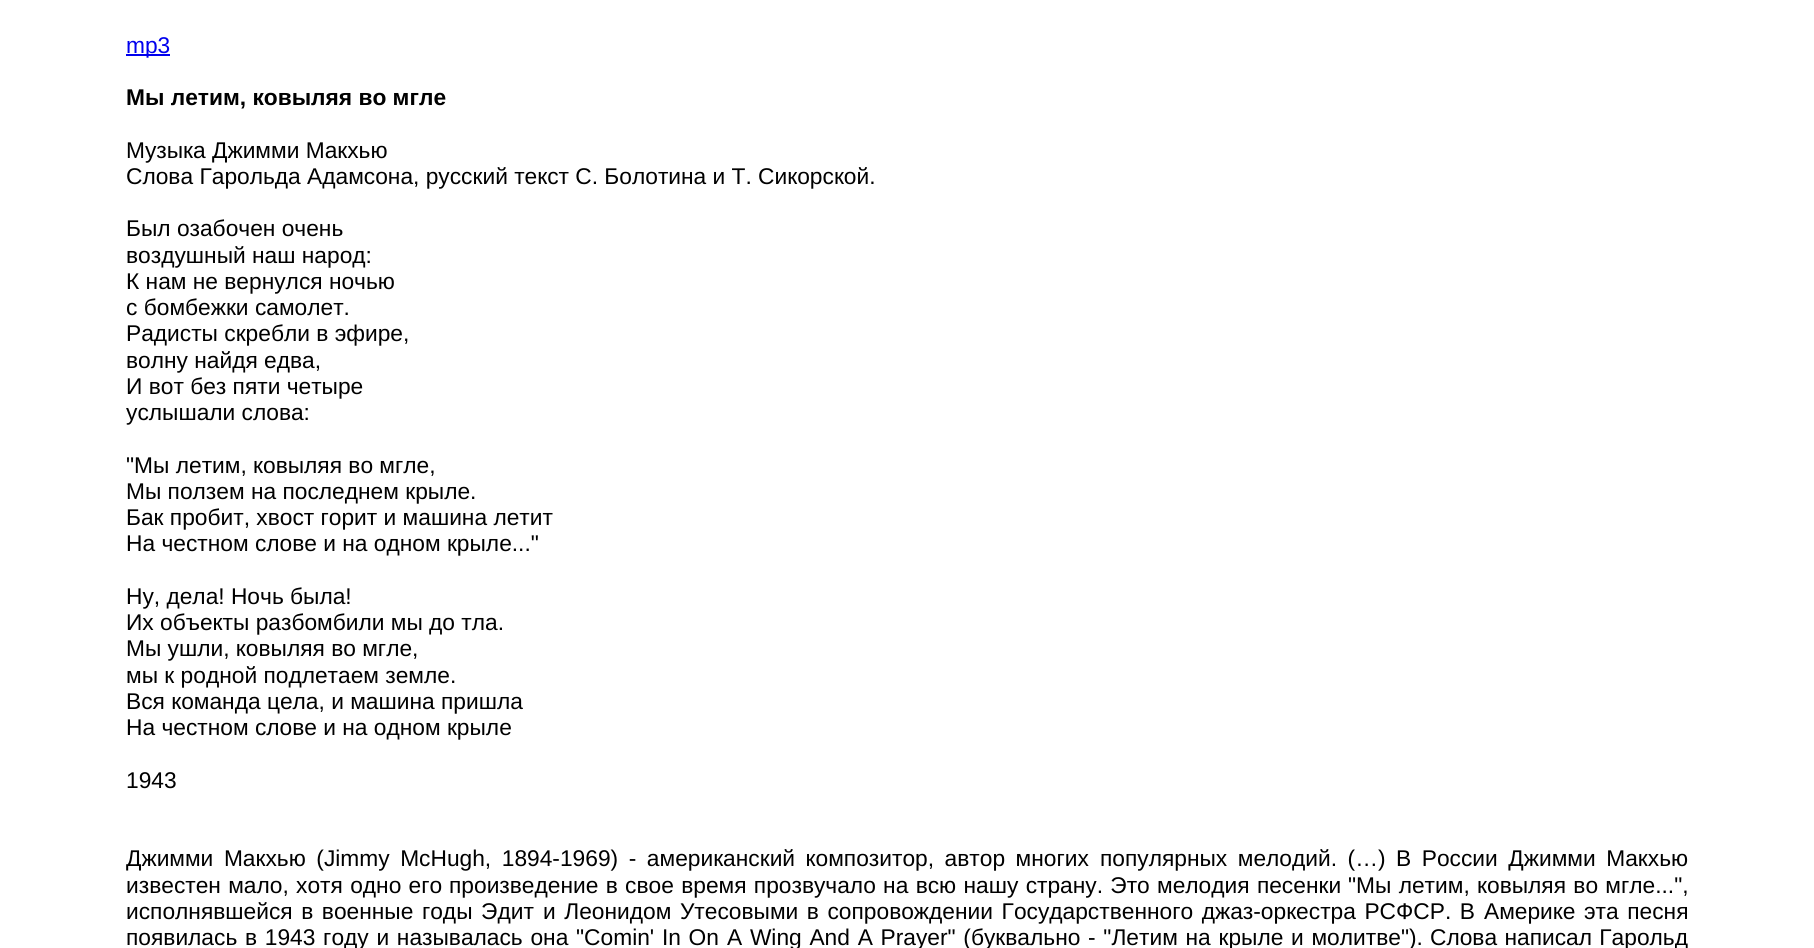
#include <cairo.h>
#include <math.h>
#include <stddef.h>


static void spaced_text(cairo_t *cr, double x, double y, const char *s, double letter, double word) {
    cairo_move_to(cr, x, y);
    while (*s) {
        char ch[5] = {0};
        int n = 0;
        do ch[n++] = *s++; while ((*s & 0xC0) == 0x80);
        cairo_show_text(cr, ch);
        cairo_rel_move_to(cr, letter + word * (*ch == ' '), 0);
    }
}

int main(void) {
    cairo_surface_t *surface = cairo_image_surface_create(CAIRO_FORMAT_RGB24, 1814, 948);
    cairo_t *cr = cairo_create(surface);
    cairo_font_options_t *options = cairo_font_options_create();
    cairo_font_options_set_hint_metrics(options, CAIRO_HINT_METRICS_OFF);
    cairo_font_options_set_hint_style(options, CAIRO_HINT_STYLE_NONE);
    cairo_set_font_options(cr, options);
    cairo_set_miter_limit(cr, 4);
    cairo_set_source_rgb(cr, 1, 1, 1);
    cairo_paint(cr);
    cairo_set_source_rgb(cr, 0, 0, 0.933);
    cairo_rectangle(cr, 126, 54, 44, 2);
    cairo_fill(cr);
    cairo_select_font_face(cr, "Liberation Sans", CAIRO_FONT_SLANT_NORMAL, CAIRO_FONT_WEIGHT_NORMAL);
    cairo_set_font_size(cr, 22.75);
    cairo_move_to(cr, 126, 53);
    cairo_show_text(cr, "mp3");
    cairo_select_font_face(cr, "Liberation Sans", CAIRO_FONT_SLANT_NORMAL, CAIRO_FONT_WEIGHT_BOLD);
    cairo_set_source_rgb(cr, 0, 0, 0);
    cairo_move_to(cr, 126, 105);
    cairo_show_text(cr, "Мы летим, ковыляя во мгле");
    cairo_select_font_face(cr, "Liberation Sans", CAIRO_FONT_SLANT_NORMAL, CAIRO_FONT_WEIGHT_NORMAL);
    cairo_move_to(cr, 126, 158);
    cairo_show_text(cr, "Музыка Джимми Макхью");
    cairo_move_to(cr, 126, 184);
    cairo_show_text(cr, "Слова Гарольда Адамсона, русский текст С. Болотина и Т. Сикорской.");
    cairo_move_to(cr, 126, 236);
    cairo_show_text(cr, "Был озабочен очень");
    cairo_move_to(cr, 126, 263);
    cairo_show_text(cr, "воздушный наш народ:");
    cairo_move_to(cr, 126, 289);
    cairo_show_text(cr, "К нам не вернулся ночью");
    cairo_move_to(cr, 126, 315);
    cairo_show_text(cr, "с бомбежки самолет.");
    cairo_move_to(cr, 126, 341);
    cairo_show_text(cr, "Радисты скребли в эфире,");
    cairo_move_to(cr, 126, 368);
    cairo_show_text(cr, "волну найдя едва,");
    cairo_move_to(cr, 126, 394);
    cairo_show_text(cr, "И вот без пяти четыре");
    cairo_move_to(cr, 126, 420);
    cairo_show_text(cr, "услышали слова:");
    cairo_move_to(cr, 126, 473);
    cairo_show_text(cr, "\"Мы летим, ковыляя во мгле,");
    cairo_move_to(cr, 126, 499);
    cairo_show_text(cr, "Мы ползем на последнем крыле.");
    cairo_move_to(cr, 126, 525);
    cairo_show_text(cr, "Бак пробит, хвост горит и машина летит");
    cairo_move_to(cr, 126, 551);
    cairo_show_text(cr, "На честном слове и на одном крыле...\"");
    cairo_move_to(cr, 126, 604);
    cairo_show_text(cr, "Ну, дела! Ночь была!");
    cairo_move_to(cr, 126, 630);
    cairo_show_text(cr, "Их объекты разбомбили мы до тла.");
    cairo_move_to(cr, 126, 656);
    cairo_show_text(cr, "Мы ушли, ковыляя во мгле,");
    cairo_move_to(cr, 126, 683);
    cairo_show_text(cr, "мы к родной подлетаем земле.");
    cairo_move_to(cr, 126, 709);
    cairo_show_text(cr, "Вся команда цела, и машина пришла");
    cairo_move_to(cr, 126, 735);
    cairo_show_text(cr, "На честном слове и на одном крыле");
    cairo_move_to(cr, 126, 788);
    cairo_show_text(cr, "1943");
    spaced_text(cr, 126, 866, "Джимми Макхью (Jimmy McHugh, 1894-1969) - американский композитор, автор многих", 0, 4.25);
    spaced_text(cr, 1100, 866, "популярных мелодий. (…) В России Джимми Макхью", 0, 4.25);
    spaced_text(cr, 126, 893, "известен мало, хотя одно его", 0, 1);
    spaced_text(cr, 449, 893, "произведение в свое время прозвучало на всю нашу страну. Это мелодия песенки", 0, 1);
    spaced_text(cr, 1348, 893, "\"Мы летим, ковыляя во мгле...\",", 0, 1);
    spaced_text(cr, 126, 919, "исполнявшейся в военные годы Эдит", 0, 2.25);
    spaced_text(cr, 543, 919, "и Леонидом Утесовыми в сопровождении Государственного джаз-оркестра РСФСР. В", 0, 2.25);
    spaced_text(cr, 1484, 919, "Америке эта песня", 0, 2.25);
    spaced_text(cr, 126, 945, "появилась в 1943 году и называлась она \"Comin' In On", 0, 1.4);
    spaced_text(cr, 727, 945, "A Wing And A Prayer\" (буквально - \"Летим на крыле и молитве\").", 0, 1.4);
    spaced_text(cr, 1430, 945, "Слова написал Гарольд", 0, 1);
    cairo_surface_write_to_png(surface, "page.png");
    cairo_font_options_destroy(options);
    cairo_destroy(cr);
    cairo_surface_destroy(surface);
    return 0;
}
